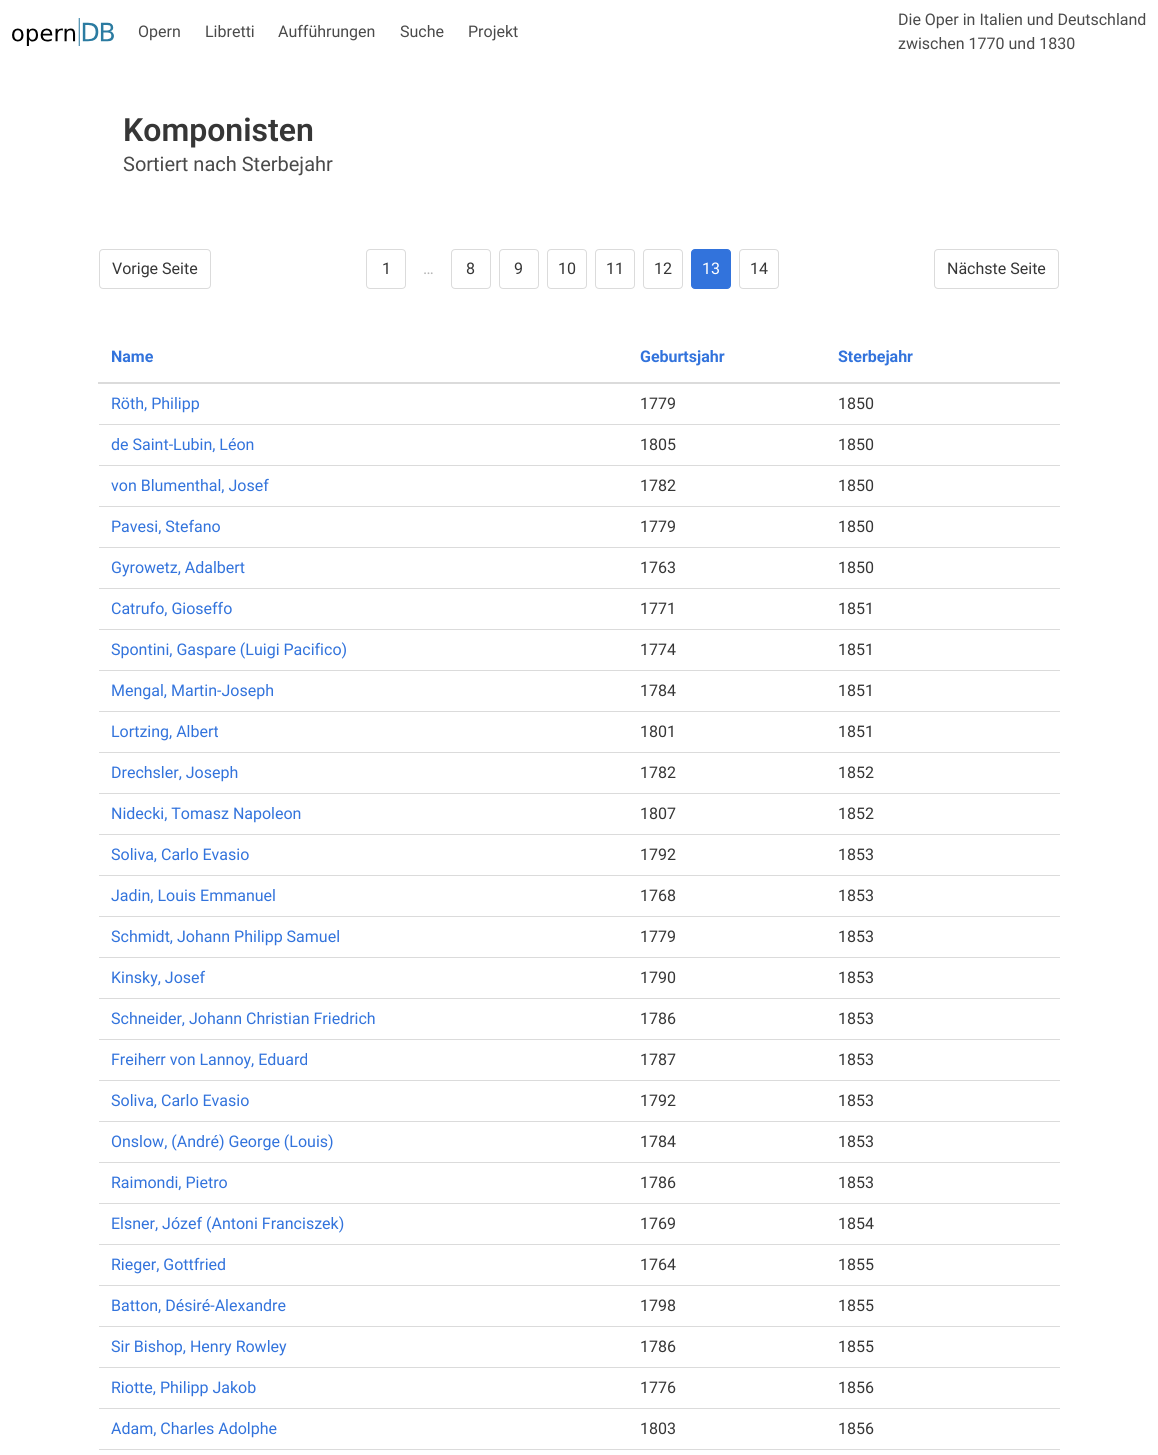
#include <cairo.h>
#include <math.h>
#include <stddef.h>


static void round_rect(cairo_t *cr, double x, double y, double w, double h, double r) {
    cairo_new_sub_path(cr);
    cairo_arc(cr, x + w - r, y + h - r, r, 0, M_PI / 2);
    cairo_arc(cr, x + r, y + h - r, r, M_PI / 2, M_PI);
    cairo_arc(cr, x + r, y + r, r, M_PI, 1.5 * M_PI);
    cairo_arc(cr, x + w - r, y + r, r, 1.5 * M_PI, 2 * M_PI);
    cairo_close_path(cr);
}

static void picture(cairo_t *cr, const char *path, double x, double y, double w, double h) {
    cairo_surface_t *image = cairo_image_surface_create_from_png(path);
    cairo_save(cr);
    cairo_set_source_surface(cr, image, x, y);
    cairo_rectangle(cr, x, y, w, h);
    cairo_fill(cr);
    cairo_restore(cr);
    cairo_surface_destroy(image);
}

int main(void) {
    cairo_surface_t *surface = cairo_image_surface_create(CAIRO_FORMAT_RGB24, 1158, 1455);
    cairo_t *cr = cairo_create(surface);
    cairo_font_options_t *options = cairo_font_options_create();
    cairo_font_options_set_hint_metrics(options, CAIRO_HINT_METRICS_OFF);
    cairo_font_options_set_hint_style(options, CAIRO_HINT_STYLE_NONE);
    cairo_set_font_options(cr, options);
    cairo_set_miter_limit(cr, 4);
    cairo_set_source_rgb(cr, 1, 1, 1);
    cairo_paint(cr);
    picture(cr, "img1.png", 12, 18, 102, 28);
    cairo_select_font_face(cr, "Roboto", CAIRO_FONT_SLANT_NORMAL, CAIRO_FONT_WEIGHT_NORMAL);
    cairo_set_font_size(cr, 16);
    cairo_set_source_rgb(cr, 0.29, 0.29, 0.29);
    cairo_move_to(cr, 138, 37);
    cairo_show_text(cr, "Opern");
    cairo_move_to(cr, 205, 37);
    cairo_show_text(cr, "Libretti");
    cairo_move_to(cr, 278, 37);
    cairo_show_text(cr, "Aufführungen");
    cairo_move_to(cr, 400, 37);
    cairo_show_text(cr, "Suche");
    cairo_move_to(cr, 468, 37);
    cairo_show_text(cr, "Projekt");
    cairo_move_to(cr, 898, 25);
    cairo_show_text(cr, "Die Oper in Italien und Deutschland");
    cairo_move_to(cr, 898, 49);
    cairo_show_text(cr, "zwischen 1770 und 1830");
    cairo_select_font_face(cr, "Roboto SemiBold", CAIRO_FONT_SLANT_NORMAL, CAIRO_FONT_WEIGHT_NORMAL);
    cairo_set_font_size(cr, 32);
    cairo_set_source_rgb(cr, 0.212, 0.212, 0.212);
    cairo_move_to(cr, 123, 141);
    cairo_show_text(cr, "Komponisten");
    cairo_select_font_face(cr, "Roboto", CAIRO_FONT_SLANT_NORMAL, CAIRO_FONT_WEIGHT_NORMAL);
    cairo_set_font_size(cr, 20);
    cairo_set_source_rgb(cr, 0.29, 0.29, 0.29);
    cairo_move_to(cr, 123, 171);
    cairo_show_text(cr, "Sortiert nach Sterbejahr");
    round_rect(cr, 99.5, 249.5, 111, 39, 3.5);
    cairo_set_source_rgb(cr, 0.859, 0.859, 0.859);
    cairo_set_line_width(cr, 1);
    cairo_stroke(cr);
    cairo_set_font_size(cr, 16);
    cairo_set_source_rgb(cr, 0.212, 0.212, 0.212);
    cairo_move_to(cr, 112, 274);
    cairo_show_text(cr, "Vorige Seite");
    round_rect(cr, 366.5, 249.5, 39, 39, 3.5);
    cairo_set_source_rgb(cr, 0.859, 0.859, 0.859);
    cairo_stroke(cr);
    cairo_set_source_rgb(cr, 0.212, 0.212, 0.212);
    cairo_move_to(cr, 382, 274);
    cairo_show_text(cr, "1");
    cairo_set_source_rgb(cr, 0.71, 0.71, 0.71);
    cairo_move_to(cr, 423, 274);
    cairo_show_text(cr, "…");
    round_rect(cr, 451.5, 249.5, 39, 39, 3.5);
    cairo_set_source_rgb(cr, 0.859, 0.859, 0.859);
    cairo_stroke(cr);
    cairo_set_source_rgb(cr, 0.212, 0.212, 0.212);
    cairo_move_to(cr, 466, 274);
    cairo_show_text(cr, "8");
    round_rect(cr, 499.5, 249.5, 39, 39, 3.5);
    cairo_set_source_rgb(cr, 0.859, 0.859, 0.859);
    cairo_stroke(cr);
    cairo_set_source_rgb(cr, 0.212, 0.212, 0.212);
    cairo_move_to(cr, 514, 274);
    cairo_show_text(cr, "9");
    round_rect(cr, 547.5, 249.5, 39, 39, 3.5);
    cairo_set_source_rgb(cr, 0.859, 0.859, 0.859);
    cairo_stroke(cr);
    cairo_set_source_rgb(cr, 0.212, 0.212, 0.212);
    cairo_move_to(cr, 558, 274);
    cairo_show_text(cr, "10");
    round_rect(cr, 595.5, 249.5, 39, 39, 3.5);
    cairo_set_source_rgb(cr, 0.859, 0.859, 0.859);
    cairo_stroke(cr);
    cairo_set_source_rgb(cr, 0.212, 0.212, 0.212);
    cairo_move_to(cr, 606, 274);
    cairo_show_text(cr, "11");
    round_rect(cr, 643.5, 249.5, 39, 39, 3.5);
    cairo_set_source_rgb(cr, 0.859, 0.859, 0.859);
    cairo_stroke(cr);
    cairo_set_source_rgb(cr, 0.212, 0.212, 0.212);
    cairo_move_to(cr, 654, 274);
    cairo_show_text(cr, "12");
    cairo_set_source_rgb(cr, 0.196, 0.451, 0.863);
    round_rect(cr, 691.5, 249.5, 39, 39, 3.5);
    cairo_fill_preserve(cr);
    cairo_stroke(cr);
    cairo_set_source_rgb(cr, 1, 1, 1);
    cairo_move_to(cr, 702, 274);
    cairo_show_text(cr, "13");
    round_rect(cr, 739.5, 249.5, 39, 39, 3.5);
    cairo_set_source_rgb(cr, 0.859, 0.859, 0.859);
    cairo_stroke(cr);
    cairo_set_source_rgb(cr, 0.212, 0.212, 0.212);
    cairo_move_to(cr, 750, 274);
    cairo_show_text(cr, "14");
    round_rect(cr, 934.5, 249.5, 124, 39, 3.5);
    cairo_set_source_rgb(cr, 0.859, 0.859, 0.859);
    cairo_stroke(cr);
    cairo_set_source_rgb(cr, 0.212, 0.212, 0.212);
    cairo_move_to(cr, 947, 274);
    cairo_show_text(cr, "Nächste Seite");
    cairo_select_font_face(cr, "Roboto", CAIRO_FONT_SLANT_NORMAL, CAIRO_FONT_WEIGHT_BOLD);
    cairo_set_source_rgb(cr, 0.196, 0.451, 0.863);
    cairo_move_to(cr, 111, 362);
    cairo_show_text(cr, "Name");
    cairo_move_to(cr, 640, 362);
    cairo_show_text(cr, "Geburtsjahr");
    cairo_set_source_rgb(cr, 0.859, 0.859, 0.859);
    cairo_rectangle(cr, 98, 382, 962, 2);
    cairo_fill(cr);
    cairo_set_source_rgb(cr, 0.196, 0.451, 0.863);
    cairo_move_to(cr, 838, 362);
    cairo_show_text(cr, "Sterbejahr");
    cairo_select_font_face(cr, "Roboto", CAIRO_FONT_SLANT_NORMAL, CAIRO_FONT_WEIGHT_NORMAL);
    cairo_move_to(cr, 111, 409);
    cairo_show_text(cr, "Röth, Philipp");
    cairo_set_source_rgb(cr, 0.212, 0.212, 0.212);
    cairo_move_to(cr, 640, 409);
    cairo_show_text(cr, "1779");
    cairo_set_source_rgb(cr, 0.859, 0.859, 0.859);
    cairo_rectangle(cr, 99, 424, 961, 1);
    cairo_fill(cr);
    cairo_set_source_rgb(cr, 0.212, 0.212, 0.212);
    cairo_move_to(cr, 838, 409);
    cairo_show_text(cr, "1850");
    cairo_set_source_rgb(cr, 0.196, 0.451, 0.863);
    cairo_move_to(cr, 111, 450);
    cairo_show_text(cr, "de Saint-Lubin, Léon");
    cairo_set_source_rgb(cr, 0.212, 0.212, 0.212);
    cairo_move_to(cr, 640, 450);
    cairo_show_text(cr, "1805");
    cairo_set_source_rgb(cr, 0.859, 0.859, 0.859);
    cairo_rectangle(cr, 99, 465, 961, 1);
    cairo_fill(cr);
    cairo_set_source_rgb(cr, 0.212, 0.212, 0.212);
    cairo_move_to(cr, 838, 450);
    cairo_show_text(cr, "1850");
    cairo_set_source_rgb(cr, 0.196, 0.451, 0.863);
    cairo_move_to(cr, 111, 491);
    cairo_show_text(cr, "von Blumenthal, Josef");
    cairo_set_source_rgb(cr, 0.212, 0.212, 0.212);
    cairo_move_to(cr, 640, 491);
    cairo_show_text(cr, "1782");
    cairo_set_source_rgb(cr, 0.859, 0.859, 0.859);
    cairo_rectangle(cr, 99, 506, 961, 1);
    cairo_fill(cr);
    cairo_set_source_rgb(cr, 0.212, 0.212, 0.212);
    cairo_move_to(cr, 838, 491);
    cairo_show_text(cr, "1850");
    cairo_set_source_rgb(cr, 0.196, 0.451, 0.863);
    cairo_move_to(cr, 111, 532);
    cairo_show_text(cr, "Pavesi, Stefano");
    cairo_set_source_rgb(cr, 0.212, 0.212, 0.212);
    cairo_move_to(cr, 640, 532);
    cairo_show_text(cr, "1779");
    cairo_set_source_rgb(cr, 0.859, 0.859, 0.859);
    cairo_rectangle(cr, 99, 547, 961, 1);
    cairo_fill(cr);
    cairo_set_source_rgb(cr, 0.212, 0.212, 0.212);
    cairo_move_to(cr, 838, 532);
    cairo_show_text(cr, "1850");
    cairo_set_source_rgb(cr, 0.196, 0.451, 0.863);
    cairo_move_to(cr, 111, 573);
    cairo_show_text(cr, "Gyrowetz, Adalbert");
    cairo_set_source_rgb(cr, 0.212, 0.212, 0.212);
    cairo_move_to(cr, 640, 573);
    cairo_show_text(cr, "1763");
    cairo_set_source_rgb(cr, 0.859, 0.859, 0.859);
    cairo_rectangle(cr, 99, 588, 961, 1);
    cairo_fill(cr);
    cairo_set_source_rgb(cr, 0.212, 0.212, 0.212);
    cairo_move_to(cr, 838, 573);
    cairo_show_text(cr, "1850");
    cairo_set_source_rgb(cr, 0.196, 0.451, 0.863);
    cairo_move_to(cr, 111, 614);
    cairo_show_text(cr, "Catrufo, Gioseffo");
    cairo_set_source_rgb(cr, 0.212, 0.212, 0.212);
    cairo_move_to(cr, 640, 614);
    cairo_show_text(cr, "1771");
    cairo_set_source_rgb(cr, 0.859, 0.859, 0.859);
    cairo_rectangle(cr, 99, 629, 961, 1);
    cairo_fill(cr);
    cairo_set_source_rgb(cr, 0.212, 0.212, 0.212);
    cairo_move_to(cr, 838, 614);
    cairo_show_text(cr, "1851");
    cairo_set_source_rgb(cr, 0.196, 0.451, 0.863);
    cairo_move_to(cr, 111, 655);
    cairo_show_text(cr, "Spontini, Gaspare (Luigi Pacifico)");
    cairo_set_source_rgb(cr, 0.212, 0.212, 0.212);
    cairo_move_to(cr, 640, 655);
    cairo_show_text(cr, "1774");
    cairo_set_source_rgb(cr, 0.859, 0.859, 0.859);
    cairo_rectangle(cr, 99, 670, 961, 1);
    cairo_fill(cr);
    cairo_set_source_rgb(cr, 0.212, 0.212, 0.212);
    cairo_move_to(cr, 838, 655);
    cairo_show_text(cr, "1851");
    cairo_set_source_rgb(cr, 0.196, 0.451, 0.863);
    cairo_move_to(cr, 111, 696);
    cairo_show_text(cr, "Mengal, Martin-Joseph");
    cairo_set_source_rgb(cr, 0.212, 0.212, 0.212);
    cairo_move_to(cr, 640, 696);
    cairo_show_text(cr, "1784");
    cairo_set_source_rgb(cr, 0.859, 0.859, 0.859);
    cairo_rectangle(cr, 99, 711, 961, 1);
    cairo_fill(cr);
    cairo_set_source_rgb(cr, 0.212, 0.212, 0.212);
    cairo_move_to(cr, 838, 696);
    cairo_show_text(cr, "1851");
    cairo_set_source_rgb(cr, 0.196, 0.451, 0.863);
    cairo_move_to(cr, 111, 737);
    cairo_show_text(cr, "Lortzing, Albert");
    cairo_set_source_rgb(cr, 0.212, 0.212, 0.212);
    cairo_move_to(cr, 640, 737);
    cairo_show_text(cr, "1801");
    cairo_set_source_rgb(cr, 0.859, 0.859, 0.859);
    cairo_rectangle(cr, 99, 752, 961, 1);
    cairo_fill(cr);
    cairo_set_source_rgb(cr, 0.212, 0.212, 0.212);
    cairo_move_to(cr, 838, 737);
    cairo_show_text(cr, "1851");
    cairo_set_source_rgb(cr, 0.196, 0.451, 0.863);
    cairo_move_to(cr, 111, 778);
    cairo_show_text(cr, "Drechsler, Joseph");
    cairo_set_source_rgb(cr, 0.212, 0.212, 0.212);
    cairo_move_to(cr, 640, 778);
    cairo_show_text(cr, "1782");
    cairo_set_source_rgb(cr, 0.859, 0.859, 0.859);
    cairo_rectangle(cr, 99, 793, 961, 1);
    cairo_fill(cr);
    cairo_set_source_rgb(cr, 0.212, 0.212, 0.212);
    cairo_move_to(cr, 838, 778);
    cairo_show_text(cr, "1852");
    cairo_set_source_rgb(cr, 0.196, 0.451, 0.863);
    cairo_move_to(cr, 111, 819);
    cairo_show_text(cr, "Nidecki, Tomasz Napoleon");
    cairo_set_source_rgb(cr, 0.212, 0.212, 0.212);
    cairo_move_to(cr, 640, 819);
    cairo_show_text(cr, "1807");
    cairo_set_source_rgb(cr, 0.859, 0.859, 0.859);
    cairo_rectangle(cr, 99, 834, 961, 1);
    cairo_fill(cr);
    cairo_set_source_rgb(cr, 0.212, 0.212, 0.212);
    cairo_move_to(cr, 838, 819);
    cairo_show_text(cr, "1852");
    cairo_set_source_rgb(cr, 0.196, 0.451, 0.863);
    cairo_move_to(cr, 111, 860);
    cairo_show_text(cr, "Soliva, Carlo Evasio");
    cairo_set_source_rgb(cr, 0.212, 0.212, 0.212);
    cairo_move_to(cr, 640, 860);
    cairo_show_text(cr, "1792");
    cairo_set_source_rgb(cr, 0.859, 0.859, 0.859);
    cairo_rectangle(cr, 99, 875, 961, 1);
    cairo_fill(cr);
    cairo_set_source_rgb(cr, 0.212, 0.212, 0.212);
    cairo_move_to(cr, 838, 860);
    cairo_show_text(cr, "1853");
    cairo_set_source_rgb(cr, 0.196, 0.451, 0.863);
    cairo_move_to(cr, 111, 901);
    cairo_show_text(cr, "Jadin, Louis Emmanuel");
    cairo_set_source_rgb(cr, 0.212, 0.212, 0.212);
    cairo_move_to(cr, 640, 901);
    cairo_show_text(cr, "1768");
    cairo_set_source_rgb(cr, 0.859, 0.859, 0.859);
    cairo_rectangle(cr, 99, 916, 961, 1);
    cairo_fill(cr);
    cairo_set_source_rgb(cr, 0.212, 0.212, 0.212);
    cairo_move_to(cr, 838, 901);
    cairo_show_text(cr, "1853");
    cairo_set_source_rgb(cr, 0.196, 0.451, 0.863);
    cairo_move_to(cr, 111, 942);
    cairo_show_text(cr, "Schmidt, Johann Philipp Samuel");
    cairo_set_source_rgb(cr, 0.212, 0.212, 0.212);
    cairo_move_to(cr, 640, 942);
    cairo_show_text(cr, "1779");
    cairo_set_source_rgb(cr, 0.859, 0.859, 0.859);
    cairo_rectangle(cr, 99, 957, 961, 1);
    cairo_fill(cr);
    cairo_set_source_rgb(cr, 0.212, 0.212, 0.212);
    cairo_move_to(cr, 838, 942);
    cairo_show_text(cr, "1853");
    cairo_set_source_rgb(cr, 0.196, 0.451, 0.863);
    cairo_move_to(cr, 111, 983);
    cairo_show_text(cr, "Kinsky, Josef");
    cairo_set_source_rgb(cr, 0.212, 0.212, 0.212);
    cairo_move_to(cr, 640, 983);
    cairo_show_text(cr, "1790");
    cairo_set_source_rgb(cr, 0.859, 0.859, 0.859);
    cairo_rectangle(cr, 99, 998, 961, 1);
    cairo_fill(cr);
    cairo_set_source_rgb(cr, 0.212, 0.212, 0.212);
    cairo_move_to(cr, 838, 983);
    cairo_show_text(cr, "1853");
    cairo_set_source_rgb(cr, 0.196, 0.451, 0.863);
    cairo_move_to(cr, 111, 1024);
    cairo_show_text(cr, "Schneider, Johann Christian Friedrich");
    cairo_set_source_rgb(cr, 0.212, 0.212, 0.212);
    cairo_move_to(cr, 640, 1024);
    cairo_show_text(cr, "1786");
    cairo_set_source_rgb(cr, 0.859, 0.859, 0.859);
    cairo_rectangle(cr, 99, 1039, 961, 1);
    cairo_fill(cr);
    cairo_set_source_rgb(cr, 0.212, 0.212, 0.212);
    cairo_move_to(cr, 838, 1024);
    cairo_show_text(cr, "1853");
    cairo_set_source_rgb(cr, 0.196, 0.451, 0.863);
    cairo_move_to(cr, 111, 1065);
    cairo_show_text(cr, "Freiherr von Lannoy, Eduard");
    cairo_set_source_rgb(cr, 0.212, 0.212, 0.212);
    cairo_move_to(cr, 640, 1065);
    cairo_show_text(cr, "1787");
    cairo_set_source_rgb(cr, 0.859, 0.859, 0.859);
    cairo_rectangle(cr, 99, 1080, 961, 1);
    cairo_fill(cr);
    cairo_set_source_rgb(cr, 0.212, 0.212, 0.212);
    cairo_move_to(cr, 838, 1065);
    cairo_show_text(cr, "1853");
    cairo_set_source_rgb(cr, 0.196, 0.451, 0.863);
    cairo_move_to(cr, 111, 1106);
    cairo_show_text(cr, "Soliva, Carlo Evasio");
    cairo_set_source_rgb(cr, 0.212, 0.212, 0.212);
    cairo_move_to(cr, 640, 1106);
    cairo_show_text(cr, "1792");
    cairo_set_source_rgb(cr, 0.859, 0.859, 0.859);
    cairo_rectangle(cr, 99, 1121, 961, 1);
    cairo_fill(cr);
    cairo_set_source_rgb(cr, 0.212, 0.212, 0.212);
    cairo_move_to(cr, 838, 1106);
    cairo_show_text(cr, "1853");
    cairo_set_source_rgb(cr, 0.196, 0.451, 0.863);
    cairo_move_to(cr, 111, 1147);
    cairo_show_text(cr, "Onslow, (André) George (Louis)");
    cairo_set_source_rgb(cr, 0.212, 0.212, 0.212);
    cairo_move_to(cr, 640, 1147);
    cairo_show_text(cr, "1784");
    cairo_set_source_rgb(cr, 0.859, 0.859, 0.859);
    cairo_rectangle(cr, 99, 1162, 961, 1);
    cairo_fill(cr);
    cairo_set_source_rgb(cr, 0.212, 0.212, 0.212);
    cairo_move_to(cr, 838, 1147);
    cairo_show_text(cr, "1853");
    cairo_set_source_rgb(cr, 0.196, 0.451, 0.863);
    cairo_move_to(cr, 111, 1188);
    cairo_show_text(cr, "Raimondi, Pietro");
    cairo_set_source_rgb(cr, 0.212, 0.212, 0.212);
    cairo_move_to(cr, 640, 1188);
    cairo_show_text(cr, "1786");
    cairo_set_source_rgb(cr, 0.859, 0.859, 0.859);
    cairo_rectangle(cr, 99, 1203, 961, 1);
    cairo_fill(cr);
    cairo_set_source_rgb(cr, 0.212, 0.212, 0.212);
    cairo_move_to(cr, 838, 1188);
    cairo_show_text(cr, "1853");
    cairo_set_source_rgb(cr, 0.196, 0.451, 0.863);
    cairo_move_to(cr, 111, 1229);
    cairo_show_text(cr, "Elsner, Józef (Antoni Franciszek)");
    cairo_set_source_rgb(cr, 0.212, 0.212, 0.212);
    cairo_move_to(cr, 640, 1229);
    cairo_show_text(cr, "1769");
    cairo_set_source_rgb(cr, 0.859, 0.859, 0.859);
    cairo_rectangle(cr, 99, 1244, 961, 1);
    cairo_fill(cr);
    cairo_set_source_rgb(cr, 0.212, 0.212, 0.212);
    cairo_move_to(cr, 838, 1229);
    cairo_show_text(cr, "1854");
    cairo_set_source_rgb(cr, 0.196, 0.451, 0.863);
    cairo_move_to(cr, 111, 1270);
    cairo_show_text(cr, "Rieger, Gottfried");
    cairo_set_source_rgb(cr, 0.212, 0.212, 0.212);
    cairo_move_to(cr, 640, 1270);
    cairo_show_text(cr, "1764");
    cairo_set_source_rgb(cr, 0.859, 0.859, 0.859);
    cairo_rectangle(cr, 99, 1285, 961, 1);
    cairo_fill(cr);
    cairo_set_source_rgb(cr, 0.212, 0.212, 0.212);
    cairo_move_to(cr, 838, 1270);
    cairo_show_text(cr, "1855");
    cairo_set_source_rgb(cr, 0.196, 0.451, 0.863);
    cairo_move_to(cr, 111, 1311);
    cairo_show_text(cr, "Batton, Désiré-Alexandre");
    cairo_set_source_rgb(cr, 0.212, 0.212, 0.212);
    cairo_move_to(cr, 640, 1311);
    cairo_show_text(cr, "1798");
    cairo_set_source_rgb(cr, 0.859, 0.859, 0.859);
    cairo_rectangle(cr, 99, 1326, 961, 1);
    cairo_fill(cr);
    cairo_set_source_rgb(cr, 0.212, 0.212, 0.212);
    cairo_move_to(cr, 838, 1311);
    cairo_show_text(cr, "1855");
    cairo_set_source_rgb(cr, 0.196, 0.451, 0.863);
    cairo_move_to(cr, 111, 1352);
    cairo_show_text(cr, "Sir Bishop, Henry Rowley");
    cairo_set_source_rgb(cr, 0.212, 0.212, 0.212);
    cairo_move_to(cr, 640, 1352);
    cairo_show_text(cr, "1786");
    cairo_set_source_rgb(cr, 0.859, 0.859, 0.859);
    cairo_rectangle(cr, 99, 1367, 961, 1);
    cairo_fill(cr);
    cairo_set_source_rgb(cr, 0.212, 0.212, 0.212);
    cairo_move_to(cr, 838, 1352);
    cairo_show_text(cr, "1855");
    cairo_set_source_rgb(cr, 0.196, 0.451, 0.863);
    cairo_move_to(cr, 111, 1393);
    cairo_show_text(cr, "Riotte, Philipp Jakob");
    cairo_set_source_rgb(cr, 0.212, 0.212, 0.212);
    cairo_move_to(cr, 640, 1393);
    cairo_show_text(cr, "1776");
    cairo_set_source_rgb(cr, 0.859, 0.859, 0.859);
    cairo_rectangle(cr, 99, 1408, 961, 1);
    cairo_fill(cr);
    cairo_set_source_rgb(cr, 0.212, 0.212, 0.212);
    cairo_move_to(cr, 838, 1393);
    cairo_show_text(cr, "1856");
    cairo_set_source_rgb(cr, 0.196, 0.451, 0.863);
    cairo_move_to(cr, 111, 1434);
    cairo_show_text(cr, "Adam, Charles Adolphe");
    cairo_set_source_rgb(cr, 0.212, 0.212, 0.212);
    cairo_move_to(cr, 640, 1434);
    cairo_show_text(cr, "1803");
    cairo_set_source_rgb(cr, 0.859, 0.859, 0.859);
    cairo_rectangle(cr, 99, 1449, 961, 1);
    cairo_fill(cr);
    cairo_set_source_rgb(cr, 0.212, 0.212, 0.212);
    cairo_move_to(cr, 838, 1434);
    cairo_show_text(cr, "1856");
    cairo_surface_write_to_png(surface, "page.png");
    cairo_font_options_destroy(options);
    cairo_destroy(cr);
    cairo_surface_destroy(surface);
    return 0;
}
